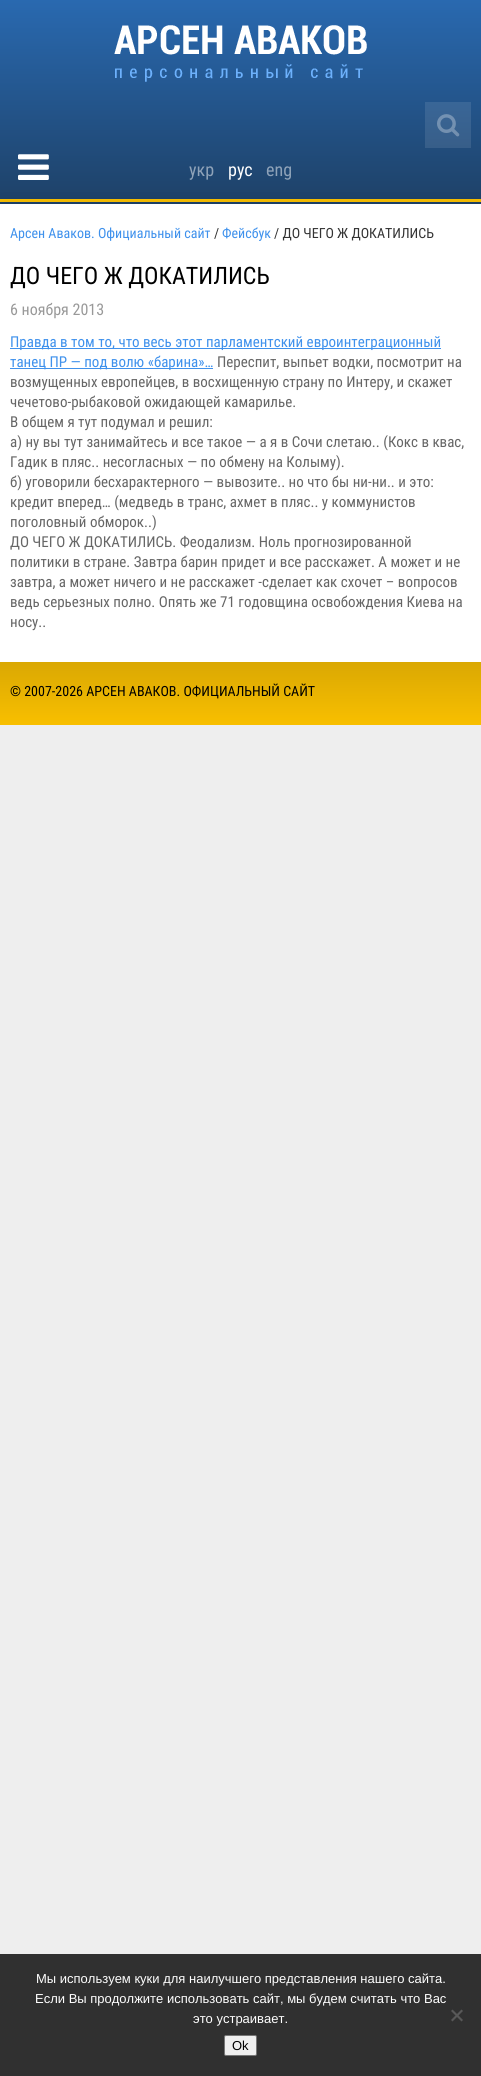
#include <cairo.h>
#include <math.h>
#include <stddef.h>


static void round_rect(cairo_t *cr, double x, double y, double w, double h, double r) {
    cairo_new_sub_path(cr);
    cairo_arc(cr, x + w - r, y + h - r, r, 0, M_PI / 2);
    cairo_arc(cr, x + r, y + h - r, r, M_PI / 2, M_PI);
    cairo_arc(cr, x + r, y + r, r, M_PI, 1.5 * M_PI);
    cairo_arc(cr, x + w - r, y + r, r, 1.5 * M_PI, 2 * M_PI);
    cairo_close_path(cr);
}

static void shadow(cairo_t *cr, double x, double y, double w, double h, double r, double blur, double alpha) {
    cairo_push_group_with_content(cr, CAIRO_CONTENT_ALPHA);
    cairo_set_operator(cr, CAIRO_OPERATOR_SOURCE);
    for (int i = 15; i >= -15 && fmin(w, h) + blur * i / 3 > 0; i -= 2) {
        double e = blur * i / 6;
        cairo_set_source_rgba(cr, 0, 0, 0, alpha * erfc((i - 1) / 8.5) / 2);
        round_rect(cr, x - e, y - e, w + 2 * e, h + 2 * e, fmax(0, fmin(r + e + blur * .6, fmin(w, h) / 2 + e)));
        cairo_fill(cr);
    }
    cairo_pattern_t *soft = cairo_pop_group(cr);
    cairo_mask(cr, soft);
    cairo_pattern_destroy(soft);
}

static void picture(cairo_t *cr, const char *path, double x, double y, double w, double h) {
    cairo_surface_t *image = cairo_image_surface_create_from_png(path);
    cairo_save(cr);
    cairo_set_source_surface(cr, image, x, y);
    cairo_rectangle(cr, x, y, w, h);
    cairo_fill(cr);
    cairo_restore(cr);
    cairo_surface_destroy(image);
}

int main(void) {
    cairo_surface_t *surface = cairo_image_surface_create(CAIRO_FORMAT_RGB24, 481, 2076);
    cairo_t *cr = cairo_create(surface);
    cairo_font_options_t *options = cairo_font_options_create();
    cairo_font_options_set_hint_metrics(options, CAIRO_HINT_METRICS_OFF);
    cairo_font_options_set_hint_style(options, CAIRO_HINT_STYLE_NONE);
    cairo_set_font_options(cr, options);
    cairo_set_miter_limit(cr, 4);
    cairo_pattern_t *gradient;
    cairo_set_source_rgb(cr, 0.933, 0.933, 0.933);
    cairo_paint(cr);
    cairo_set_source_rgb(cr, 0.114, 0.255, 0.408);
    cairo_rectangle(cr, 0, 202, 481, 2);
    cairo_fill(cr);
    gradient = cairo_pattern_create_linear(241, 0, 241, 199);
    cairo_pattern_add_color_stop_rgba(gradient, 0, 0.161, 0.412, 0.69, 1);
    cairo_pattern_add_color_stop_rgba(gradient, 1, 0.118, 0.259, 0.412, 1);
    cairo_set_source(cr, gradient);
    cairo_pattern_destroy(gradient);
    cairo_rectangle(cr, 0, 0, 481, 199);
    cairo_fill(cr);
    gradient = cairo_pattern_create_linear(241, 0, 241, 199);
    cairo_pattern_add_color_stop_rgba(gradient, 0, 0.243, 0.471, 0.722, 1);
    cairo_pattern_add_color_stop_rgba(gradient, 1, 0.208, 0.333, 0.471, 1);
    cairo_set_source(cr, gradient);
    cairo_pattern_destroy(gradient);
    cairo_rectangle(cr, 425, 102, 46, 46);
    cairo_fill(cr);
    cairo_set_source_rgb(cr, 0.973, 0.749, 0);
    cairo_rectangle(cr, 0, 199, 481, 3);
    cairo_fill(cr);
    picture(cr, "img1.png", 18, 154, 31, 26);
    picture(cr, "img2.png", 114, 25, 253, 57);
    picture(cr, "img3.png", 437, 114, 23, 23);
    cairo_select_font_face(cr, "Roboto Condensed", CAIRO_FONT_SLANT_NORMAL, CAIRO_FONT_WEIGHT_NORMAL);
    cairo_set_font_size(cr, 18);
    cairo_set_source_rgb(cr, 0.561, 0.639, 0.725);
    cairo_move_to(cr, 189, 176);
    cairo_show_text(cr, "укр");
    cairo_set_source_rgb(cr, 1, 1, 1);
    cairo_move_to(cr, 228, 176);
    cairo_show_text(cr, "рус");
    cairo_set_source_rgb(cr, 0.561, 0.639, 0.725);
    cairo_move_to(cr, 266, 176);
    cairo_show_text(cr, "eng");
    cairo_set_source_rgb(cr, 0, 0, 0);
    shadow(cr, 0, 204, 481, 458, 0, 7.5, 0.1);
    cairo_set_source_rgb(cr, 1, 1, 1);
    cairo_rectangle(cr, 0, 204, 481, 458);
    cairo_fill(cr);
    cairo_set_font_size(cr, 14);
    cairo_set_source_rgb(cr, 0.247, 0.569, 0.922);
    cairo_move_to(cr, 10, 238);
    cairo_show_text(cr, "Арсен Аваков. Официальный сайт");
    cairo_set_source_rgb(cr, 0.2, 0.2, 0.2);
    cairo_move_to(cr, 214, 238);
    cairo_show_text(cr, "/");
    cairo_set_source_rgb(cr, 0.247, 0.569, 0.922);
    cairo_move_to(cr, 222, 238);
    cairo_show_text(cr, "Фейсбук");
    cairo_set_source_rgb(cr, 0.2, 0.2, 0.2);
    cairo_move_to(cr, 274, 238);
    cairo_show_text(cr, "/ ДО ЧЕГО Ж ДОКАТИЛИСЬ");
    cairo_set_font_size(cr, 24);
    cairo_set_source_rgb(cr, 0, 0, 0);
    cairo_move_to(cr, 10, 284);
    cairo_show_text(cr, "ДО ЧЕГО Ж ДОКАТИЛИСЬ");
    cairo_set_font_size(cr, 16);
    cairo_set_source_rgb(cr, 0.6, 0.6, 0.6);
    cairo_move_to(cr, 10, 315);
    cairo_show_text(cr, "6 ноября 2013");
    cairo_set_source_rgb(cr, 0.247, 0.569, 0.922);
    cairo_rectangle(cr, 10, 348, 431, 1);
    cairo_fill(cr);
    cairo_set_font_size(cr, 15);
    cairo_move_to(cr, 10, 347);
    cairo_show_text(cr, "Правда в том то, что весь этот парламентский евроинтеграционный");
    cairo_rectangle(cr, 10, 368, 203, 1);
    cairo_fill(cr);
    cairo_move_to(cr, 10, 367);
    cairo_show_text(cr, "танец ПР — под волю «барина»…");
    cairo_set_source_rgb(cr, 0.4, 0.4, 0.4);
    cairo_move_to(cr, 217, 367);
    cairo_show_text(cr, "Переспит, выпьет водки, посмотрит на");
    cairo_move_to(cr, 10, 387);
    cairo_show_text(cr, "возмущенных европейцев, в восхищенную страну по Интеру, и скажет");
    cairo_move_to(cr, 10, 407);
    cairo_show_text(cr, "чечетово-рыбаковой ожидающей камарилье.");
    cairo_move_to(cr, 10, 427);
    cairo_show_text(cr, "В общем я тут подумал и решил:");
    cairo_move_to(cr, 10, 447);
    cairo_show_text(cr, "а) ну вы тут занимайтесь и все такое — а я в Сочи слетаю.. (Кокс в квас,");
    cairo_move_to(cr, 10, 467);
    cairo_show_text(cr, "Гадик в пляс.. несогласных — по обмену на Колыму).");
    cairo_move_to(cr, 10, 487);
    cairo_show_text(cr, "б) уговорили бесхарактерного — вывозите.. но что бы ни-ни.. и это:");
    cairo_move_to(cr, 10, 507);
    cairo_show_text(cr, "кредит вперед… (медведь в транс, ахмет в пляс.. у коммунистов");
    cairo_move_to(cr, 10, 527);
    cairo_show_text(cr, "поголовный обморок..)");
    cairo_move_to(cr, 10, 547);
    cairo_show_text(cr, "ДО ЧЕГО Ж ДОКАТИЛИСЬ. Феодализм. Ноль прогнозированной");
    cairo_move_to(cr, 10, 567);
    cairo_show_text(cr, "политики в стране. Завтра барин придет и все расскажет. А может и не");
    cairo_move_to(cr, 10, 587);
    cairo_show_text(cr, "завтра, а может ничего и не расскажет -сделает как схочет – вопросов");
    cairo_move_to(cr, 10, 607);
    cairo_show_text(cr, "ведь серьезных полно. Опять же 71 годовщина освобождения Киева на");
    cairo_move_to(cr, 10, 627);
    cairo_show_text(cr, "носу..");
    gradient = cairo_pattern_create_linear(241, 662, 241, 725);
    cairo_pattern_add_color_stop_rgba(gradient, 0, 0.855, 0.659, 0.012, 1);
    cairo_pattern_add_color_stop_rgba(gradient, 1, 0.973, 0.749, 0, 1);
    cairo_set_source(cr, gradient);
    cairo_pattern_destroy(gradient);
    cairo_rectangle(cr, 0, 662, 481, 63);
    cairo_fill(cr);
    cairo_set_font_size(cr, 14);
    cairo_set_source_rgb(cr, 0, 0, 0);
    cairo_move_to(cr, 10, 696);
    cairo_show_text(cr, "© 2007-2026 АРСЕН АВАКОВ. ОФИЦИАЛЬНЫЙ САЙТ");
    cairo_set_source_rgb(cr, 0.188, 0.188, 0.188);
    cairo_rectangle(cr, 0, 1954, 481, 122);
    cairo_fill(cr);
    cairo_select_font_face(cr, "Liberation Sans", CAIRO_FONT_SLANT_NORMAL, CAIRO_FONT_WEIGHT_NORMAL);
    cairo_set_font_size(cr, 13);
    cairo_set_source_rgb(cr, 1, 1, 1);
    cairo_move_to(cr, 36, 1983);
    cairo_show_text(cr, "Мы используем куки для наилучшего представления нашего сайта.");
    cairo_move_to(cr, 35, 2003);
    cairo_show_text(cr, "Если Вы продолжите использовать сайт, мы будем считать что Вас");
    cairo_move_to(cr, 193, 2023);
    cairo_show_text(cr, "это устраивает.");
    cairo_set_source_rgb(cr, 0.345, 0.345, 0.345);
    cairo_new_path(cr);
    cairo_move_to(cr, 461.5, 2009.5);
    cairo_line_to(cr, 463, 2011);
    cairo_line_to(cr, 452.5, 2021.5);
    cairo_line_to(cr, 451, 2020);
    cairo_close_path(cr);
    cairo_fill(cr);
    cairo_new_path(cr);
    cairo_move_to(cr, 451, 2011);
    cairo_line_to(cr, 452.5, 2009.5);
    cairo_line_to(cr, 463, 2020);
    cairo_line_to(cr, 461.5, 2021.5);
    cairo_close_path(cr);
    cairo_fill(cr);
    cairo_set_source_rgb(cr, 0.937, 0.937, 0.937);
    round_rect(cr, 224.5, 2035.5, 32, 20, 1.5);
    cairo_fill_preserve(cr);
    cairo_set_source_rgb(cr, 0.463, 0.463, 0.463);
    cairo_set_line_width(cr, 1);
    cairo_stroke(cr);
    cairo_set_source_rgb(cr, 0, 0, 0);
    cairo_move_to(cr, 232, 2050);
    cairo_show_text(cr, "Ok");
    cairo_surface_write_to_png(surface, "page.png");
    cairo_font_options_destroy(options);
    cairo_destroy(cr);
    cairo_surface_destroy(surface);
    return 0;
}
